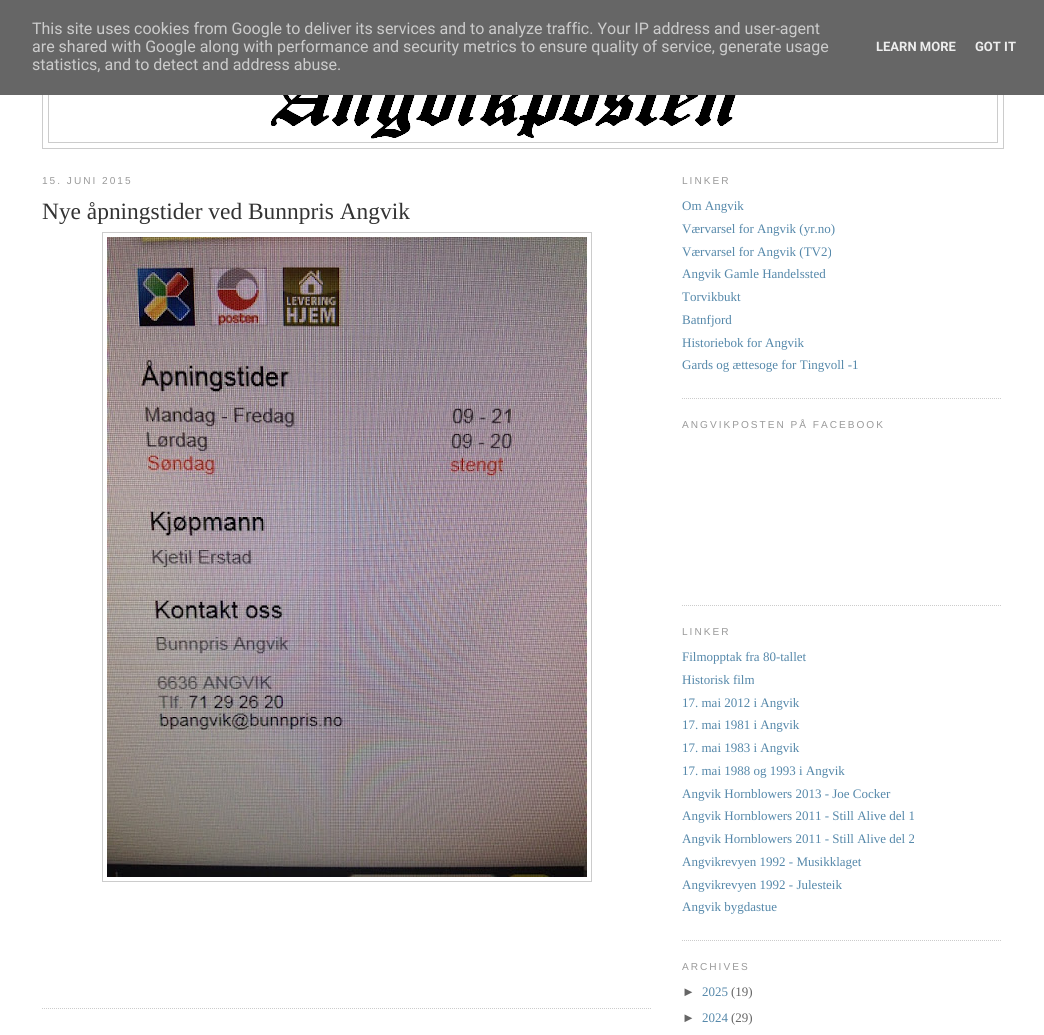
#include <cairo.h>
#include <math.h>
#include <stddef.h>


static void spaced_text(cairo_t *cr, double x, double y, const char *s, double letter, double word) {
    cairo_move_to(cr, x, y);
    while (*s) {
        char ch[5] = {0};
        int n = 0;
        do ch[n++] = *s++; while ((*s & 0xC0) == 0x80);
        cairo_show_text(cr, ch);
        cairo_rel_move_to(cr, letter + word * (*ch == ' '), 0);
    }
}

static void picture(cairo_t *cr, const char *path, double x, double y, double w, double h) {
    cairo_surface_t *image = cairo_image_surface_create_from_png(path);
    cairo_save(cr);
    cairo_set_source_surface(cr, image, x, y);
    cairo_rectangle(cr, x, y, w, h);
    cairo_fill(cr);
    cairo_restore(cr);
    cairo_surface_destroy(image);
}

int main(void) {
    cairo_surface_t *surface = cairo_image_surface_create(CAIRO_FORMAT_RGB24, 1044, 1035);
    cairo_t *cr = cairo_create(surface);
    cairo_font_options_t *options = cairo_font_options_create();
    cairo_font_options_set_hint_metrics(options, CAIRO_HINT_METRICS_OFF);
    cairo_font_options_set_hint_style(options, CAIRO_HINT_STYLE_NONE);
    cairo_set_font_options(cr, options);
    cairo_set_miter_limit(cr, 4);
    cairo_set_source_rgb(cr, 1, 1, 1);
    cairo_paint(cr);
    cairo_rectangle(cr, 42.5, 10.5, 961, 138);
    cairo_set_source_rgb(cr, 0.8, 0.8, 0.8);
    cairo_set_line_width(cr, 1);
    cairo_stroke(cr);
    cairo_rectangle(cr, 48.5, 16.5, 949, 126);
    cairo_stroke(cr);
    cairo_set_source_rgb(cr, 0.4, 0.4, 0.4);
    cairo_rectangle(cr, 0, 0, 1044, 95);
    cairo_fill(cr);
    cairo_select_font_face(cr, "Roboto", CAIRO_FONT_SLANT_NORMAL, CAIRO_FONT_WEIGHT_NORMAL);
    cairo_set_font_size(cr, 16);
    cairo_set_source_rgb(cr, 0.8, 0.8, 0.8);
    cairo_move_to(cr, 32, 34);
    cairo_show_text(cr, "This site uses cookies from Google to deliver its services and to analyze traffic. Your IP address and user-agent");
    cairo_move_to(cr, 32, 52);
    cairo_show_text(cr, "are shared with Google along with performance and security metrics to ensure quality of service, generate usage");
    cairo_move_to(cr, 32, 70);
    cairo_show_text(cr, "statistics, and to detect and address abuse.");
    cairo_select_font_face(cr, "Roboto", CAIRO_FONT_SLANT_NORMAL, CAIRO_FONT_WEIGHT_BOLD);
    cairo_set_font_size(cr, 13);
    cairo_set_source_rgb(cr, 0.933, 0.933, 0.933);
    cairo_move_to(cr, 876, 51);
    cairo_show_text(cr, "LEARN MORE");
    cairo_move_to(cr, 975, 51);
    cairo_show_text(cr, "GOT IT");
    picture(cr, "img1.png", 271, 95, 472, 44);
    cairo_select_font_face(cr, "Liberation Sans", CAIRO_FONT_SLANT_NORMAL, CAIRO_FONT_WEIGHT_NORMAL);
    cairo_set_font_size(cr, 10.1);
    cairo_set_source_rgb(cr, 0.6, 0.6, 0.6);
    spaced_text(cr, 42, 184, "15. JUNI 2015", 2, 0);
    cairo_new_path(cr);
    cairo_move_to(cr, 42, 1008.5);
    cairo_line_to(cr, 652, 1008.5);
    cairo_set_source_rgb(cr, 0.8, 0.8, 0.8);
    cairo_set_dash(cr, (double[]){1, 1}, 2, 0);
    cairo_stroke(cr);
    cairo_select_font_face(cr, "Liberation Serif", CAIRO_FONT_SLANT_NORMAL, CAIRO_FONT_WEIGHT_NORMAL);
    cairo_set_font_size(cr, 23.4);
    cairo_set_source_rgb(cr, 0.2, 0.2, 0.2);
    cairo_move_to(cr, 42, 219);
    cairo_show_text(cr, "Nye åpningstider ved Bunnpris Angvik");
    cairo_rectangle(cr, 102.5, 232.5, 489, 649);
    cairo_set_source_rgb(cr, 0.8, 0.8, 0.8);
    cairo_set_dash(cr, NULL, 0, 0);
    cairo_stroke(cr);
    picture(cr, "img2.png", 107, 237, 480, 640);
    cairo_new_path(cr);
    cairo_move_to(cr, 682, 398.5);
    cairo_line_to(cr, 1002, 398.5);
    cairo_set_dash(cr, (double[]){1, 1}, 2, 0);
    cairo_stroke(cr);
    cairo_select_font_face(cr, "Liberation Sans", CAIRO_FONT_SLANT_NORMAL, CAIRO_FONT_WEIGHT_NORMAL);
    cairo_set_font_size(cr, 10.1);
    cairo_set_source_rgb(cr, 0.6, 0.6, 0.6);
    spaced_text(cr, 682, 184, "LINKER", 2, 0);
    cairo_select_font_face(cr, "Liberation Serif", CAIRO_FONT_SLANT_NORMAL, CAIRO_FONT_WEIGHT_NORMAL);
    cairo_set_font_size(cr, 13);
    cairo_set_source_rgb(cr, 0.333, 0.533, 0.667);
    cairo_move_to(cr, 682, 210);
    cairo_show_text(cr, "Om Angvik");
    cairo_move_to(cr, 682, 233);
    cairo_show_text(cr, "Værvarsel for Angvik (yr.no)");
    cairo_move_to(cr, 682, 256);
    cairo_show_text(cr, "Værvarsel for Angvik (TV2)");
    cairo_move_to(cr, 682, 278);
    cairo_show_text(cr, "Angvik Gamle Handelssted");
    cairo_move_to(cr, 682, 301);
    cairo_show_text(cr, "Torvikbukt");
    cairo_move_to(cr, 682, 324);
    cairo_show_text(cr, "Batnfjord");
    cairo_move_to(cr, 682, 347);
    cairo_show_text(cr, "Historiebok for Angvik");
    cairo_move_to(cr, 682, 369);
    cairo_show_text(cr, "Gards og ættesoge for Tingvoll -1");
    cairo_new_path(cr);
    cairo_move_to(cr, 682, 605.5);
    cairo_line_to(cr, 1002, 605.5);
    cairo_set_source_rgb(cr, 0.8, 0.8, 0.8);
    cairo_stroke(cr);
    cairo_select_font_face(cr, "Liberation Sans", CAIRO_FONT_SLANT_NORMAL, CAIRO_FONT_WEIGHT_NORMAL);
    cairo_set_font_size(cr, 10.1);
    cairo_set_source_rgb(cr, 0.6, 0.6, 0.6);
    spaced_text(cr, 682, 428, "ANGVIKPOSTEN PÅ FACEBOOK", 2, 0);
    cairo_new_path(cr);
    cairo_move_to(cr, 682, 940.5);
    cairo_line_to(cr, 1002, 940.5);
    cairo_set_source_rgb(cr, 0.8, 0.8, 0.8);
    cairo_stroke(cr);
    cairo_set_source_rgb(cr, 0.6, 0.6, 0.6);
    spaced_text(cr, 682, 635, "LINKER", 2, 0);
    cairo_select_font_face(cr, "Liberation Serif", CAIRO_FONT_SLANT_NORMAL, CAIRO_FONT_WEIGHT_NORMAL);
    cairo_set_font_size(cr, 13);
    cairo_set_source_rgb(cr, 0.333, 0.533, 0.667);
    cairo_move_to(cr, 682, 661);
    cairo_show_text(cr, "Filmopptak fra 80-tallet");
    cairo_move_to(cr, 682, 684);
    cairo_show_text(cr, "Historisk film");
    cairo_move_to(cr, 682, 707);
    cairo_show_text(cr, "17. mai 2012 i Angvik");
    cairo_move_to(cr, 682, 729);
    cairo_show_text(cr, "17. mai 1981 i Angvik");
    cairo_move_to(cr, 682, 752);
    cairo_show_text(cr, "17. mai 1983 i Angvik");
    cairo_move_to(cr, 682, 775);
    cairo_show_text(cr, "17. mai 1988 og 1993 i Angvik");
    cairo_move_to(cr, 682, 798);
    cairo_show_text(cr, "Angvik Hornblowers 2013 - Joe Cocker");
    cairo_move_to(cr, 682, 820);
    cairo_show_text(cr, "Angvik Hornblowers 2011 - Still Alive del 1");
    cairo_move_to(cr, 682, 843);
    cairo_show_text(cr, "Angvik Hornblowers 2011 - Still Alive del 2");
    cairo_move_to(cr, 682, 866);
    cairo_show_text(cr, "Angvikrevyen 1992 - Musikklaget");
    cairo_move_to(cr, 682, 889);
    cairo_show_text(cr, "Angvikrevyen 1992 - Julesteik");
    cairo_move_to(cr, 682, 911);
    cairo_show_text(cr, "Angvik bygdastue");
    cairo_select_font_face(cr, "Liberation Sans", CAIRO_FONT_SLANT_NORMAL, CAIRO_FONT_WEIGHT_NORMAL);
    cairo_set_font_size(cr, 10.1);
    cairo_set_source_rgb(cr, 0.6, 0.6, 0.6);
    spaced_text(cr, 682, 970, "ARCHIVES", 2, 0);
    cairo_set_font_size(cr, 13);
    cairo_set_source_rgb(cr, 0.4, 0.4, 0.4);
    cairo_move_to(cr, 682, 996);
    cairo_show_text(cr, "►");
    cairo_select_font_face(cr, "Liberation Serif", CAIRO_FONT_SLANT_NORMAL, CAIRO_FONT_WEIGHT_NORMAL);
    cairo_set_source_rgb(cr, 0.333, 0.533, 0.667);
    cairo_move_to(cr, 702, 996);
    cairo_show_text(cr, "2025");
    cairo_set_source_rgb(cr, 0.4, 0.4, 0.4);
    cairo_move_to(cr, 731, 996);
    cairo_show_text(cr, "(19)");
    cairo_select_font_face(cr, "Liberation Sans", CAIRO_FONT_SLANT_NORMAL, CAIRO_FONT_WEIGHT_NORMAL);
    cairo_move_to(cr, 682, 1022);
    cairo_show_text(cr, "►");
    cairo_select_font_face(cr, "Liberation Serif", CAIRO_FONT_SLANT_NORMAL, CAIRO_FONT_WEIGHT_NORMAL);
    cairo_set_source_rgb(cr, 0.333, 0.533, 0.667);
    cairo_move_to(cr, 702, 1022);
    cairo_show_text(cr, "2024");
    cairo_set_source_rgb(cr, 0.4, 0.4, 0.4);
    cairo_move_to(cr, 731, 1022);
    cairo_show_text(cr, "(29)");
    cairo_surface_write_to_png(surface, "page.png");
    cairo_font_options_destroy(options);
    cairo_destroy(cr);
    cairo_surface_destroy(surface);
    return 0;
}
